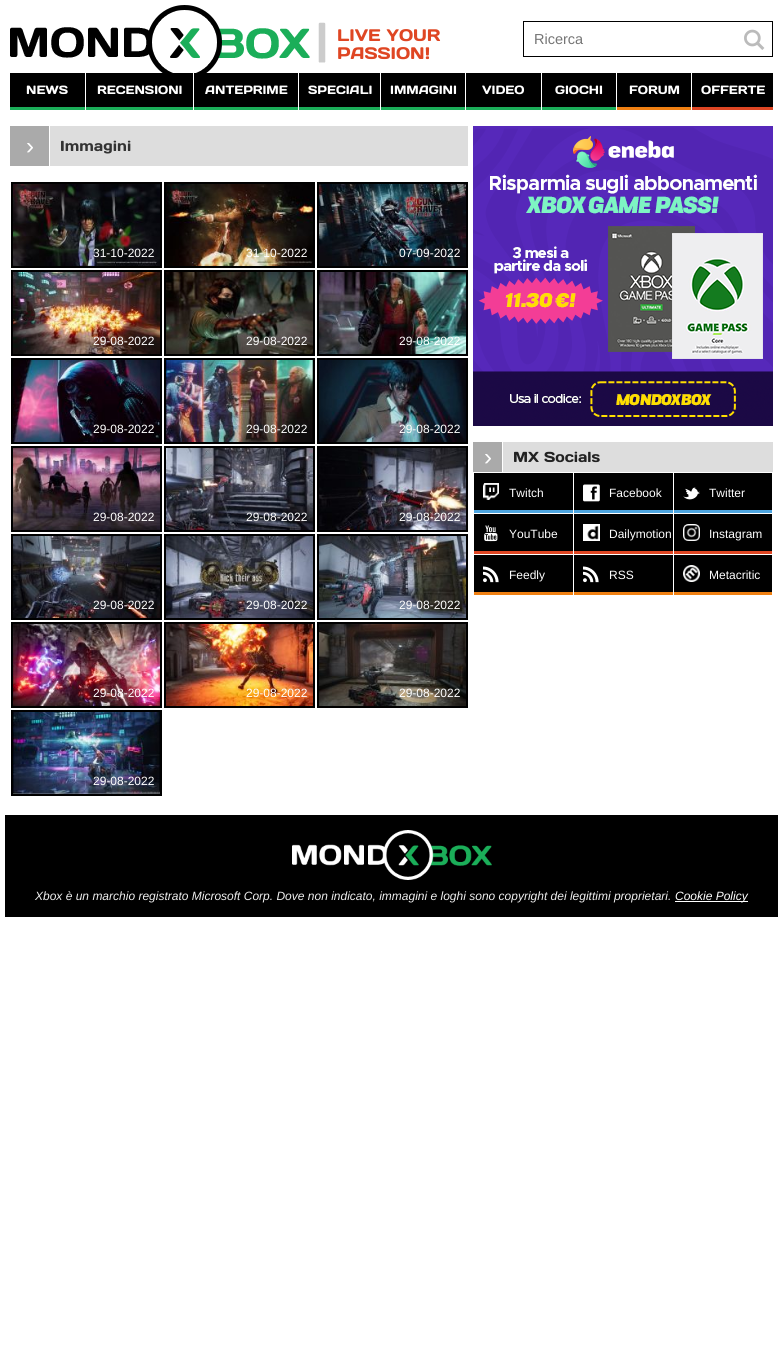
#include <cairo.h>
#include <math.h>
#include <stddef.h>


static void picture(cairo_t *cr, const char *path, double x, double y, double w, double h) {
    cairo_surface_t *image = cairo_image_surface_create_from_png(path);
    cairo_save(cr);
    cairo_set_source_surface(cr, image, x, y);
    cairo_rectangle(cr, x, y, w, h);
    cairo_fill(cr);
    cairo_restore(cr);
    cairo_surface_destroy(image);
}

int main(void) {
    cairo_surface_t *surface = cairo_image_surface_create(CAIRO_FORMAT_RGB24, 783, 1362);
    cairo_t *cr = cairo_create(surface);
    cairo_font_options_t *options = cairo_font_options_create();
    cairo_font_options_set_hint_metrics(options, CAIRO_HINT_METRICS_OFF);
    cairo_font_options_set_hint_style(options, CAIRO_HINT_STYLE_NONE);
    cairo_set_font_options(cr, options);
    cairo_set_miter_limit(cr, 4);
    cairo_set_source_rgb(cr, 1, 1, 1);
    cairo_paint(cr);
    picture(cr, "img1.png", 10, 5, 316, 68);
    cairo_select_font_face(cr, "Days One", CAIRO_FONT_SLANT_NORMAL, CAIRO_FONT_WEIGHT_NORMAL);
    cairo_set_font_size(cr, 16.75);
    cairo_set_source_rgb(cr, 0.875, 0.275, 0.137);
    cairo_move_to(cr, 337, 41);
    cairo_show_text(cr, "LIVE YOUR");
    cairo_move_to(cr, 337, 59);
    cairo_show_text(cr, "PASSION!");
    cairo_rectangle(cr, 523.5, 21.5, 249, 35);
    cairo_set_source_rgb(cr, 0, 0, 0);
    cairo_set_line_width(cr, 1);
    cairo_stroke(cr);
    cairo_select_font_face(cr, "Liberation Sans", CAIRO_FONT_SLANT_NORMAL, CAIRO_FONT_WEIGHT_NORMAL);
    cairo_set_font_size(cr, 14.5);
    cairo_set_source_rgb(cr, 0.459, 0.459, 0.459);
    cairo_move_to(cr, 534, 44);
    cairo_show_text(cr, "Ricerca");
    picture(cr, "img2.png", 744, 29, 21, 21);
    cairo_set_source_rgb(cr, 0, 0, 0);
    cairo_rectangle(cr, 10, 73, 75, 34);
    cairo_fill(cr);
    cairo_set_source_rgb(cr, 0.106, 0.682, 0.349);
    cairo_rectangle(cr, 10, 107, 75, 3);
    cairo_fill(cr);
    cairo_select_font_face(cr, "Days One", CAIRO_FONT_SLANT_NORMAL, CAIRO_FONT_WEIGHT_NORMAL);
    cairo_set_font_size(cr, 12);
    cairo_set_source_rgb(cr, 1, 1, 1);
    cairo_move_to(cr, 26, 94);
    cairo_show_text(cr, "NEWS");
    cairo_set_source_rgb(cr, 0, 0, 0);
    cairo_rectangle(cr, 86, 73, 107, 34);
    cairo_fill(cr);
    cairo_set_source_rgb(cr, 0.106, 0.682, 0.349);
    cairo_rectangle(cr, 86, 107, 107, 3);
    cairo_fill(cr);
    cairo_set_source_rgb(cr, 1, 1, 1);
    cairo_move_to(cr, 97, 94);
    cairo_show_text(cr, "RECENSIONI");
    cairo_set_source_rgb(cr, 0, 0, 0);
    cairo_rectangle(cr, 194, 73, 104, 34);
    cairo_fill(cr);
    cairo_set_source_rgb(cr, 0.106, 0.682, 0.349);
    cairo_rectangle(cr, 194, 107, 104, 3);
    cairo_fill(cr);
    cairo_set_source_rgb(cr, 1, 1, 1);
    cairo_move_to(cr, 205, 94);
    cairo_show_text(cr, "ANTEPRIME");
    cairo_set_source_rgb(cr, 0, 0, 0);
    cairo_rectangle(cr, 299, 73, 81, 34);
    cairo_fill(cr);
    cairo_set_source_rgb(cr, 0.106, 0.682, 0.349);
    cairo_rectangle(cr, 299, 107, 81, 3);
    cairo_fill(cr);
    cairo_set_source_rgb(cr, 1, 1, 1);
    cairo_move_to(cr, 308, 94);
    cairo_show_text(cr, "SPECIALI");
    cairo_set_source_rgb(cr, 0, 0, 0);
    cairo_rectangle(cr, 381, 73, 84, 34);
    cairo_fill(cr);
    cairo_set_source_rgb(cr, 0.106, 0.682, 0.349);
    cairo_rectangle(cr, 381, 107, 84, 3);
    cairo_fill(cr);
    cairo_set_source_rgb(cr, 1, 1, 1);
    cairo_move_to(cr, 390, 94);
    cairo_show_text(cr, "IMMAGINI");
    cairo_set_source_rgb(cr, 0, 0, 0);
    cairo_rectangle(cr, 466, 73, 75, 34);
    cairo_fill(cr);
    cairo_set_source_rgb(cr, 0.106, 0.682, 0.349);
    cairo_rectangle(cr, 466, 107, 75, 3);
    cairo_fill(cr);
    cairo_set_source_rgb(cr, 1, 1, 1);
    cairo_move_to(cr, 482, 94);
    cairo_show_text(cr, "VIDEO");
    cairo_set_source_rgb(cr, 0, 0, 0);
    cairo_rectangle(cr, 542, 73, 74, 34);
    cairo_fill(cr);
    cairo_set_source_rgb(cr, 0.106, 0.682, 0.349);
    cairo_rectangle(cr, 542, 107, 74, 3);
    cairo_fill(cr);
    cairo_set_source_rgb(cr, 1, 1, 1);
    cairo_move_to(cr, 555, 94);
    cairo_show_text(cr, "GIOCHI");
    cairo_set_source_rgb(cr, 0, 0, 0);
    cairo_rectangle(cr, 617, 73, 74, 34);
    cairo_fill(cr);
    cairo_set_source_rgb(cr, 0.941, 0.502, 0.071);
    cairo_rectangle(cr, 617, 107, 74, 3);
    cairo_fill(cr);
    cairo_set_source_rgb(cr, 1, 1, 1);
    cairo_move_to(cr, 629, 94);
    cairo_show_text(cr, "FORUM");
    cairo_set_source_rgb(cr, 0, 0, 0);
    cairo_rectangle(cr, 692, 73, 81, 34);
    cairo_fill(cr);
    cairo_set_source_rgb(cr, 0.875, 0.275, 0.137);
    cairo_rectangle(cr, 692, 107, 81, 3);
    cairo_fill(cr);
    cairo_set_source_rgb(cr, 1, 1, 1);
    cairo_move_to(cr, 701, 94);
    cairo_show_text(cr, "OFFERTE");
    cairo_set_source_rgb(cr, 0.867, 0.867, 0.867);
    cairo_rectangle(cr, 50, 126, 418, 40);
    cairo_fill(cr);
    cairo_set_source_rgb(cr, 0.667, 0.667, 0.667);
    cairo_rectangle(cr, 10, 126, 39, 40);
    cairo_fill(cr);
    cairo_select_font_face(cr, "Liberation Sans", CAIRO_FONT_SLANT_NORMAL, CAIRO_FONT_WEIGHT_NORMAL);
    cairo_set_font_size(cr, 24);
    cairo_set_source_rgb(cr, 1, 1, 1);
    cairo_move_to(cr, 26, 154);
    cairo_show_text(cr, "›");
    cairo_select_font_face(cr, "Days One", CAIRO_FONT_SLANT_NORMAL, CAIRO_FONT_WEIGHT_NORMAL);
    cairo_set_font_size(cr, 14.5);
    cairo_set_source_rgb(cr, 0.2, 0.2, 0.2);
    cairo_move_to(cr, 60, 151);
    cairo_show_text(cr, "Immagini");
    cairo_rectangle(cr, 12, 183, 149, 84);
    cairo_set_source_rgb(cr, 0, 0, 0);
    cairo_set_line_width(cr, 2);
    cairo_stroke(cr);
    picture(cr, "img3.png", 13, 184, 147, 82);
    cairo_select_font_face(cr, "Liberation Sans", CAIRO_FONT_SLANT_NORMAL, CAIRO_FONT_WEIGHT_NORMAL);
    cairo_set_font_size(cr, 12);
    cairo_set_source_rgb(cr, 1, 1, 1);
    cairo_move_to(cr, 93, 257);
    cairo_show_text(cr, "31-10-2022");
    cairo_rectangle(cr, 165, 183, 149, 84);
    cairo_set_source_rgb(cr, 0, 0, 0);
    cairo_stroke(cr);
    picture(cr, "img4.png", 166, 184, 147, 82);
    cairo_set_source_rgb(cr, 1, 1, 1);
    cairo_move_to(cr, 246, 257);
    cairo_show_text(cr, "31-10-2022");
    cairo_rectangle(cr, 318, 183, 149, 84);
    cairo_set_source_rgb(cr, 0, 0, 0);
    cairo_stroke(cr);
    picture(cr, "img5.png", 319, 184, 147, 82);
    cairo_set_source_rgb(cr, 1, 1, 1);
    cairo_move_to(cr, 399, 257);
    cairo_show_text(cr, "07-09-2022");
    cairo_rectangle(cr, 12, 271, 149, 84);
    cairo_set_source_rgb(cr, 0, 0, 0);
    cairo_stroke(cr);
    picture(cr, "img6.png", 13, 272, 147, 82);
    cairo_set_source_rgb(cr, 1, 1, 1);
    cairo_move_to(cr, 93, 345);
    cairo_show_text(cr, "29-08-2022");
    cairo_rectangle(cr, 165, 271, 149, 84);
    cairo_set_source_rgb(cr, 0, 0, 0);
    cairo_stroke(cr);
    picture(cr, "img7.png", 166, 272, 147, 82);
    cairo_set_source_rgb(cr, 1, 1, 1);
    cairo_move_to(cr, 246, 345);
    cairo_show_text(cr, "29-08-2022");
    cairo_rectangle(cr, 318, 271, 149, 84);
    cairo_set_source_rgb(cr, 0, 0, 0);
    cairo_stroke(cr);
    picture(cr, "img8.png", 319, 272, 147, 82);
    cairo_set_source_rgb(cr, 1, 1, 1);
    cairo_move_to(cr, 399, 345);
    cairo_show_text(cr, "29-08-2022");
    cairo_rectangle(cr, 12, 359, 149, 84);
    cairo_set_source_rgb(cr, 0, 0, 0);
    cairo_stroke(cr);
    picture(cr, "img9.png", 13, 360, 147, 82);
    cairo_set_source_rgb(cr, 1, 1, 1);
    cairo_move_to(cr, 93, 433);
    cairo_show_text(cr, "29-08-2022");
    cairo_rectangle(cr, 165, 359, 149, 84);
    cairo_set_source_rgb(cr, 0, 0, 0);
    cairo_stroke(cr);
    picture(cr, "img10.png", 166, 360, 147, 82);
    cairo_set_source_rgb(cr, 1, 1, 1);
    cairo_move_to(cr, 246, 433);
    cairo_show_text(cr, "29-08-2022");
    cairo_rectangle(cr, 318, 359, 149, 84);
    cairo_set_source_rgb(cr, 0, 0, 0);
    cairo_stroke(cr);
    picture(cr, "img11.png", 319, 360, 147, 82);
    cairo_set_source_rgb(cr, 1, 1, 1);
    cairo_move_to(cr, 399, 433);
    cairo_show_text(cr, "29-08-2022");
    cairo_rectangle(cr, 12, 447, 149, 84);
    cairo_set_source_rgb(cr, 0, 0, 0);
    cairo_stroke(cr);
    picture(cr, "img12.png", 13, 448, 147, 82);
    cairo_set_source_rgb(cr, 1, 1, 1);
    cairo_move_to(cr, 93, 521);
    cairo_show_text(cr, "29-08-2022");
    cairo_rectangle(cr, 165, 447, 149, 84);
    cairo_set_source_rgb(cr, 0, 0, 0);
    cairo_stroke(cr);
    picture(cr, "img13.png", 166, 448, 147, 82);
    cairo_set_source_rgb(cr, 1, 1, 1);
    cairo_move_to(cr, 246, 521);
    cairo_show_text(cr, "29-08-2022");
    cairo_rectangle(cr, 318, 447, 149, 84);
    cairo_set_source_rgb(cr, 0, 0, 0);
    cairo_stroke(cr);
    picture(cr, "img14.png", 319, 448, 147, 82);
    cairo_set_source_rgb(cr, 1, 1, 1);
    cairo_move_to(cr, 399, 521);
    cairo_show_text(cr, "29-08-2022");
    cairo_rectangle(cr, 12, 535, 149, 84);
    cairo_set_source_rgb(cr, 0, 0, 0);
    cairo_stroke(cr);
    picture(cr, "img15.png", 13, 536, 147, 82);
    cairo_set_source_rgb(cr, 1, 1, 1);
    cairo_move_to(cr, 93, 609);
    cairo_show_text(cr, "29-08-2022");
    cairo_rectangle(cr, 165, 535, 149, 84);
    cairo_set_source_rgb(cr, 0, 0, 0);
    cairo_stroke(cr);
    picture(cr, "img16.png", 166, 536, 147, 82);
    cairo_set_source_rgb(cr, 1, 1, 1);
    cairo_move_to(cr, 246, 609);
    cairo_show_text(cr, "29-08-2022");
    cairo_rectangle(cr, 318, 535, 149, 84);
    cairo_set_source_rgb(cr, 0, 0, 0);
    cairo_stroke(cr);
    picture(cr, "img17.png", 319, 536, 147, 82);
    cairo_set_source_rgb(cr, 1, 1, 1);
    cairo_move_to(cr, 399, 609);
    cairo_show_text(cr, "29-08-2022");
    cairo_rectangle(cr, 12, 623, 149, 84);
    cairo_set_source_rgb(cr, 0, 0, 0);
    cairo_stroke(cr);
    picture(cr, "img18.png", 13, 624, 147, 82);
    cairo_set_source_rgb(cr, 1, 1, 1);
    cairo_move_to(cr, 93, 697);
    cairo_show_text(cr, "29-08-2022");
    cairo_rectangle(cr, 165, 623, 149, 84);
    cairo_set_source_rgb(cr, 0, 0, 0);
    cairo_stroke(cr);
    picture(cr, "img19.png", 166, 624, 147, 82);
    cairo_set_source_rgb(cr, 1, 1, 1);
    cairo_move_to(cr, 246, 697);
    cairo_show_text(cr, "29-08-2022");
    cairo_rectangle(cr, 318, 623, 149, 84);
    cairo_set_source_rgb(cr, 0, 0, 0);
    cairo_stroke(cr);
    picture(cr, "img20.png", 319, 624, 147, 82);
    cairo_set_source_rgb(cr, 1, 1, 1);
    cairo_move_to(cr, 399, 697);
    cairo_show_text(cr, "29-08-2022");
    cairo_rectangle(cr, 12, 711, 149, 84);
    cairo_set_source_rgb(cr, 0, 0, 0);
    cairo_stroke(cr);
    picture(cr, "img21.png", 13, 712, 147, 82);
    cairo_set_source_rgb(cr, 1, 1, 1);
    cairo_move_to(cr, 93, 785);
    cairo_show_text(cr, "29-08-2022");
    picture(cr, "img22.png", 473, 126, 300, 300);
    cairo_set_source_rgb(cr, 0.867, 0.867, 0.867);
    cairo_rectangle(cr, 503, 442, 270, 30);
    cairo_fill(cr);
    cairo_set_source_rgb(cr, 0.667, 0.667, 0.667);
    cairo_rectangle(cr, 473, 442, 29, 30);
    cairo_fill(cr);
    cairo_set_font_size(cr, 24);
    cairo_set_source_rgb(cr, 1, 1, 1);
    cairo_move_to(cr, 484, 465);
    cairo_show_text(cr, "›");
    cairo_select_font_face(cr, "Days One", CAIRO_FONT_SLANT_NORMAL, CAIRO_FONT_WEIGHT_NORMAL);
    cairo_set_font_size(cr, 14.5);
    cairo_set_source_rgb(cr, 0.133, 0.133, 0.133);
    cairo_move_to(cr, 513, 462);
    cairo_show_text(cr, "MX Socials");
    cairo_set_source_rgb(cr, 0, 0, 0);
    cairo_rectangle(cr, 474, 473, 99, 37);
    cairo_fill(cr);
    cairo_set_source_rgb(cr, 0.302, 0.647, 0.878);
    cairo_rectangle(cr, 474, 510, 99, 3);
    cairo_fill(cr);
    picture(cr, "img23.png", 483, 483, 16, 17);
    cairo_select_font_face(cr, "Liberation Sans", CAIRO_FONT_SLANT_NORMAL, CAIRO_FONT_WEIGHT_NORMAL);
    cairo_set_font_size(cr, 12);
    cairo_set_source_rgb(cr, 1, 1, 1);
    cairo_move_to(cr, 509, 497);
    cairo_show_text(cr, "Twitch");
    cairo_set_source_rgb(cr, 0, 0, 0);
    cairo_rectangle(cr, 574, 473, 99, 37);
    cairo_fill(cr);
    cairo_set_source_rgb(cr, 0.302, 0.647, 0.878);
    cairo_rectangle(cr, 574, 510, 99, 3);
    cairo_fill(cr);
    picture(cr, "img24.png", 583, 484, 17, 18);
    cairo_set_source_rgb(cr, 1, 1, 1);
    cairo_move_to(cr, 609, 497);
    cairo_show_text(cr, "Facebook");
    cairo_set_source_rgb(cr, 0, 0, 0);
    cairo_rectangle(cr, 674, 473, 98, 37);
    cairo_fill(cr);
    cairo_set_source_rgb(cr, 0.302, 0.647, 0.878);
    cairo_rectangle(cr, 674, 510, 98, 3);
    cairo_fill(cr);
    picture(cr, "img25.png", 683, 487, 17, 13);
    cairo_set_source_rgb(cr, 1, 1, 1);
    cairo_move_to(cr, 709, 497);
    cairo_show_text(cr, "Twitter");
    cairo_set_source_rgb(cr, 0, 0, 0);
    cairo_rectangle(cr, 474, 514, 99, 37);
    cairo_fill(cr);
    cairo_set_source_rgb(cr, 0.875, 0.275, 0.137);
    cairo_rectangle(cr, 474, 551, 99, 3);
    cairo_fill(cr);
    picture(cr, "img26.png", 484, 525, 14, 17);
    cairo_set_source_rgb(cr, 1, 1, 1);
    cairo_move_to(cr, 509, 538);
    cairo_show_text(cr, "YouTube");
    cairo_set_source_rgb(cr, 0, 0, 0);
    cairo_rectangle(cr, 574, 514, 99, 37);
    cairo_fill(cr);
    cairo_set_source_rgb(cr, 0.875, 0.275, 0.137);
    cairo_rectangle(cr, 574, 551, 99, 3);
    cairo_fill(cr);
    picture(cr, "img27.png", 583, 524, 17, 17);
    cairo_set_source_rgb(cr, 1, 1, 1);
    cairo_move_to(cr, 609, 538);
    cairo_show_text(cr, "Dailymotion");
    cairo_set_source_rgb(cr, 0, 0, 0);
    cairo_rectangle(cr, 674, 514, 98, 37);
    cairo_fill(cr);
    cairo_set_source_rgb(cr, 0.875, 0.275, 0.137);
    cairo_rectangle(cr, 674, 551, 98, 3);
    cairo_fill(cr);
    picture(cr, "img28.png", 683, 524, 17, 17);
    cairo_set_source_rgb(cr, 1, 1, 1);
    cairo_move_to(cr, 709, 538);
    cairo_show_text(cr, "Instagram");
    cairo_set_source_rgb(cr, 0, 0, 0);
    cairo_rectangle(cr, 474, 555, 99, 37);
    cairo_fill(cr);
    cairo_set_source_rgb(cr, 0.941, 0.502, 0.071);
    cairo_rectangle(cr, 474, 592, 99, 3);
    cairo_fill(cr);
    picture(cr, "img29.png", 483, 566, 16, 17);
    cairo_set_source_rgb(cr, 1, 1, 1);
    cairo_move_to(cr, 509, 579);
    cairo_show_text(cr, "Feedly");
    cairo_set_source_rgb(cr, 0, 0, 0);
    cairo_rectangle(cr, 574, 555, 99, 37);
    cairo_fill(cr);
    cairo_set_source_rgb(cr, 0.941, 0.502, 0.071);
    cairo_rectangle(cr, 574, 592, 99, 3);
    cairo_fill(cr);
    picture(cr, "img29.png", 583, 566, 16, 17);
    cairo_set_source_rgb(cr, 1, 1, 1);
    cairo_move_to(cr, 609, 579);
    cairo_show_text(cr, "RSS");
    cairo_set_source_rgb(cr, 0, 0, 0);
    cairo_rectangle(cr, 674, 555, 98, 37);
    cairo_fill(cr);
    cairo_set_source_rgb(cr, 0.941, 0.502, 0.071);
    cairo_rectangle(cr, 674, 592, 98, 3);
    cairo_fill(cr);
    picture(cr, "img30.png", 683, 565, 17, 17);
    cairo_set_source_rgb(cr, 1, 1, 1);
    cairo_move_to(cr, 709, 579);
    cairo_show_text(cr, "Metacritic");
    cairo_set_source_rgb(cr, 0, 0, 0);
    cairo_rectangle(cr, 5, 815, 773, 102);
    cairo_fill(cr);
    picture(cr, "img31.png", 292, 830, 200, 50);
    cairo_select_font_face(cr, "Liberation Sans", CAIRO_FONT_SLANT_ITALIC, CAIRO_FONT_WEIGHT_NORMAL);
    cairo_set_source_rgb(cr, 0.933, 0.933, 0.933);
    cairo_move_to(cr, 35, 900);
    cairo_show_text(cr, "Xbox è un marchio registrato Microsoft Corp. Dove non indicato, immagini e loghi sono copyright dei legittimi proprietari.");
    cairo_set_source_rgb(cr, 1, 1, 1);
    cairo_rectangle(cr, 675, 901, 73, 1);
    cairo_fill(cr);
    cairo_move_to(cr, 675, 900);
    cairo_show_text(cr, "Cookie Policy");
    cairo_surface_write_to_png(surface, "page.png");
    cairo_font_options_destroy(options);
    cairo_destroy(cr);
    cairo_surface_destroy(surface);
    return 0;
}
